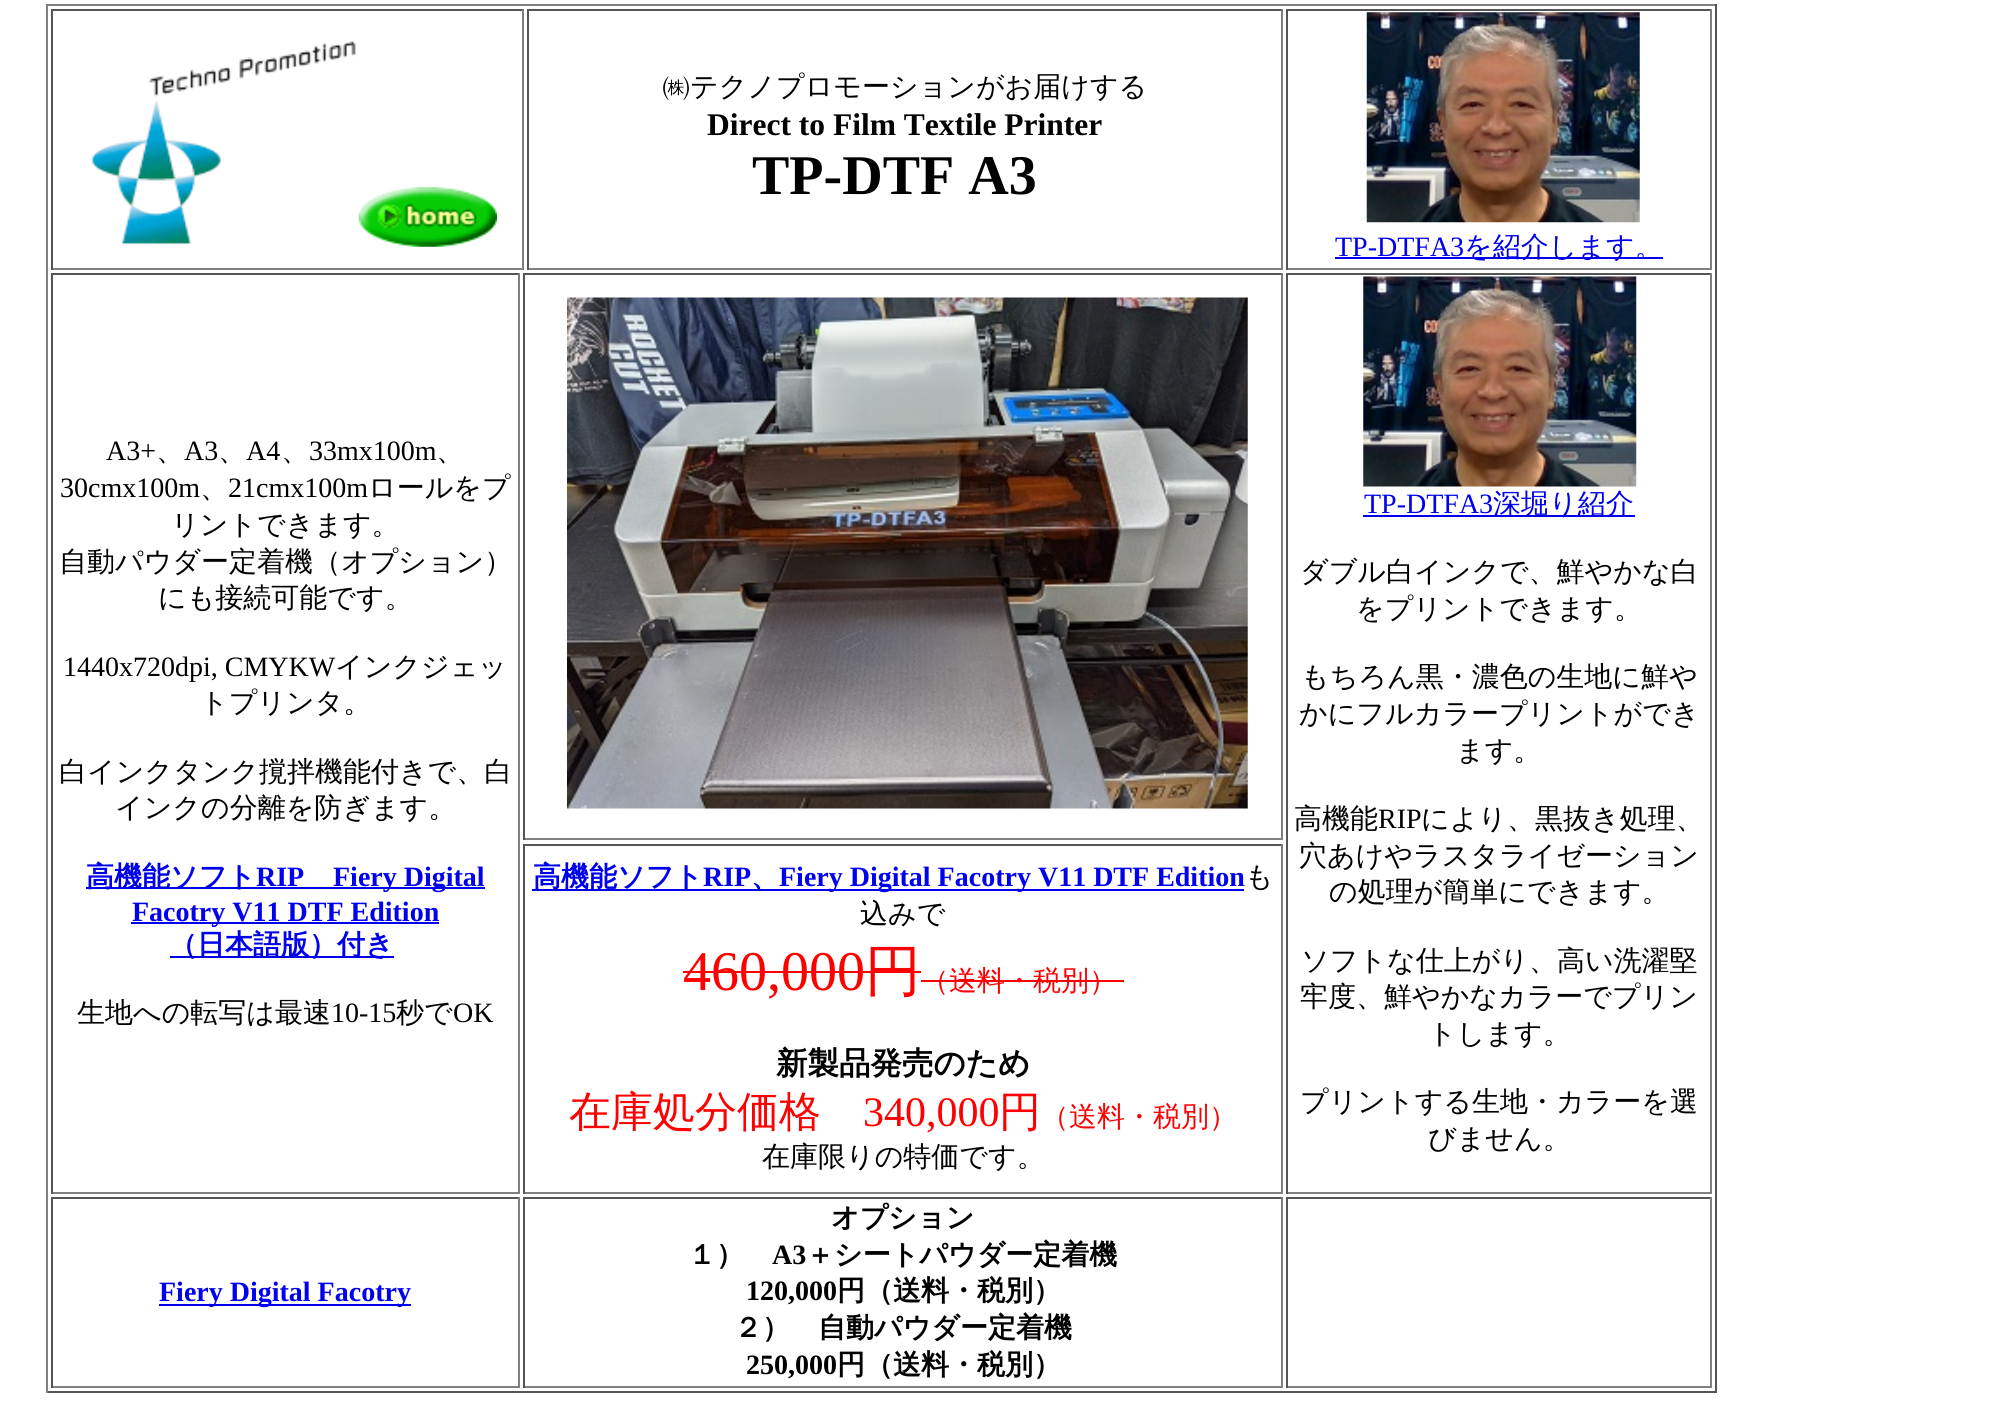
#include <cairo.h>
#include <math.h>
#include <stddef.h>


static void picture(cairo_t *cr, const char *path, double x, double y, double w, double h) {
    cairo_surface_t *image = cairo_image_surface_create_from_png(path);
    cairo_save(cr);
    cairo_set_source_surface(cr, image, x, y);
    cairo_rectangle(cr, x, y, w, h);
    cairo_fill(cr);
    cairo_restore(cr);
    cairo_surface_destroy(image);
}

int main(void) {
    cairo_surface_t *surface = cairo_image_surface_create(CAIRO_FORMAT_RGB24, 2007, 1426);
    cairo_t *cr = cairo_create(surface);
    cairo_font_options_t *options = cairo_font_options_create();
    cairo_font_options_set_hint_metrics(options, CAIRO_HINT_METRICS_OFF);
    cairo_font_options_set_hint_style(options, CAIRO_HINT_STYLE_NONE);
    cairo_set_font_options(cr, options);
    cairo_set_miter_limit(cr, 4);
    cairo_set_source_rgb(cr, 1, 1, 1);
    cairo_paint(cr);
    cairo_set_source_rgb(cr, 0.502, 0.502, 0.502);
    cairo_rectangle(cr, 46, 4, 1671, 2);
    cairo_fill(cr);
    cairo_set_source_rgb(cr, 0.333, 0.333, 0.333);
    cairo_rectangle(cr, 1715, 4, 2, 1389);
    cairo_fill(cr);
    cairo_rectangle(cr, 46, 1391, 1671, 2);
    cairo_fill(cr);
    cairo_set_source_rgb(cr, 0.502, 0.502, 0.502);
    cairo_rectangle(cr, 46, 4, 2, 1389);
    cairo_fill(cr);
    cairo_set_source_rgb(cr, 0.333, 0.333, 0.333);
    cairo_rectangle(cr, 51, 9, 472, 2);
    cairo_fill(cr);
    cairo_set_source_rgb(cr, 0.502, 0.502, 0.502);
    cairo_rectangle(cr, 522, 9, 2, 261);
    cairo_fill(cr);
    cairo_rectangle(cr, 51, 268, 472, 2);
    cairo_fill(cr);
    cairo_set_source_rgb(cr, 0.333, 0.333, 0.333);
    cairo_rectangle(cr, 51, 9, 2, 261);
    cairo_fill(cr);
    picture(cr, "img1.png", 91, 41, 265, 204);
    picture(cr, "img2.png", 358, 187, 139, 60);
    cairo_rectangle(cr, 527, 9, 756, 2);
    cairo_fill(cr);
    cairo_set_source_rgb(cr, 0.502, 0.502, 0.502);
    cairo_rectangle(cr, 1281, 9, 2, 261);
    cairo_fill(cr);
    cairo_rectangle(cr, 527, 268, 756, 2);
    cairo_fill(cr);
    cairo_set_source_rgb(cr, 0.333, 0.333, 0.333);
    cairo_rectangle(cr, 527, 9, 2, 261);
    cairo_fill(cr);
    cairo_select_font_face(cr, "WenQuanYi Zen Hei Medium", CAIRO_FONT_SLANT_NORMAL, CAIRO_FONT_WEIGHT_NORMAL);
    cairo_set_font_size(cr, 28);
    cairo_set_source_rgb(cr, 0, 0, 0);
    cairo_move_to(cr, 662, 96);
    cairo_show_text(cr, "㈱テクノプロモーションがお届けする");
    cairo_select_font_face(cr, "Liberation Serif", CAIRO_FONT_SLANT_NORMAL, CAIRO_FONT_WEIGHT_BOLD);
    cairo_set_font_size(cr, 31.5);
    cairo_move_to(cr, 707, 135);
    cairo_show_text(cr, "Direct to Film Textile Printer");
    cairo_set_font_size(cr, 56);
    cairo_move_to(cr, 752, 194);
    cairo_show_text(cr, "TP-DTF A3");
    cairo_set_source_rgb(cr, 0.333, 0.333, 0.333);
    cairo_rectangle(cr, 1286, 9, 426, 2);
    cairo_fill(cr);
    cairo_set_source_rgb(cr, 0.502, 0.502, 0.502);
    cairo_rectangle(cr, 1710, 9, 2, 261);
    cairo_fill(cr);
    cairo_rectangle(cr, 1286, 268, 426, 2);
    cairo_fill(cr);
    cairo_set_source_rgb(cr, 0.333, 0.333, 0.333);
    cairo_rectangle(cr, 1286, 9, 2, 261);
    cairo_fill(cr);
    picture(cr, "img3.png", 1366, 12, 274, 211);
    cairo_select_font_face(cr, "Liberation Serif", CAIRO_FONT_SLANT_NORMAL, CAIRO_FONT_WEIGHT_NORMAL);
    cairo_set_font_size(cr, 28);
    cairo_set_source_rgb(cr, 0, 0, 0.933);
    cairo_move_to(cr, 1335, 256);
    cairo_show_text(cr, "TP-DTFA3");
    cairo_rectangle(cr, 1335, 257, 328, 2);
    cairo_fill(cr);
    cairo_select_font_face(cr, "WenQuanYi Zen Hei Medium", CAIRO_FONT_SLANT_NORMAL, CAIRO_FONT_WEIGHT_NORMAL);
    cairo_move_to(cr, 1464, 256);
    cairo_show_text(cr, "を紹介します。");
    cairo_set_source_rgb(cr, 0.333, 0.333, 0.333);
    cairo_rectangle(cr, 51, 273, 469, 2);
    cairo_fill(cr);
    cairo_set_source_rgb(cr, 0.502, 0.502, 0.502);
    cairo_rectangle(cr, 518, 273, 2, 921);
    cairo_fill(cr);
    cairo_rectangle(cr, 51, 1192, 469, 2);
    cairo_fill(cr);
    cairo_set_source_rgb(cr, 0.333, 0.333, 0.333);
    cairo_rectangle(cr, 51, 273, 2, 921);
    cairo_fill(cr);
    cairo_select_font_face(cr, "Liberation Serif", CAIRO_FONT_SLANT_NORMAL, CAIRO_FONT_WEIGHT_NORMAL);
    cairo_set_source_rgb(cr, 0, 0, 0);
    cairo_move_to(cr, 106, 460);
    cairo_show_text(cr, "A3+");
    cairo_select_font_face(cr, "WenQuanYi Zen Hei Medium", CAIRO_FONT_SLANT_NORMAL, CAIRO_FONT_WEIGHT_NORMAL);
    cairo_move_to(cr, 156, 460);
    cairo_show_text(cr, "、");
    cairo_select_font_face(cr, "Liberation Serif", CAIRO_FONT_SLANT_NORMAL, CAIRO_FONT_WEIGHT_NORMAL);
    cairo_move_to(cr, 184, 460);
    cairo_show_text(cr, "A3");
    cairo_select_font_face(cr, "WenQuanYi Zen Hei Medium", CAIRO_FONT_SLANT_NORMAL, CAIRO_FONT_WEIGHT_NORMAL);
    cairo_move_to(cr, 218, 460);
    cairo_show_text(cr, "、");
    cairo_select_font_face(cr, "Liberation Serif", CAIRO_FONT_SLANT_NORMAL, CAIRO_FONT_WEIGHT_NORMAL);
    cairo_move_to(cr, 246, 460);
    cairo_show_text(cr, "A4");
    cairo_select_font_face(cr, "WenQuanYi Zen Hei Medium", CAIRO_FONT_SLANT_NORMAL, CAIRO_FONT_WEIGHT_NORMAL);
    cairo_move_to(cr, 281, 460);
    cairo_show_text(cr, "、");
    cairo_select_font_face(cr, "Liberation Serif", CAIRO_FONT_SLANT_NORMAL, CAIRO_FONT_WEIGHT_NORMAL);
    cairo_move_to(cr, 309, 460);
    cairo_show_text(cr, "33mx100m");
    cairo_select_font_face(cr, "WenQuanYi Zen Hei Medium", CAIRO_FONT_SLANT_NORMAL, CAIRO_FONT_WEIGHT_NORMAL);
    cairo_move_to(cr, 436, 460);
    cairo_show_text(cr, "、");
    cairo_select_font_face(cr, "Liberation Serif", CAIRO_FONT_SLANT_NORMAL, CAIRO_FONT_WEIGHT_NORMAL);
    cairo_move_to(cr, 60, 497);
    cairo_show_text(cr, "30cmx100m");
    cairo_select_font_face(cr, "WenQuanYi Zen Hei Medium", CAIRO_FONT_SLANT_NORMAL, CAIRO_FONT_WEIGHT_NORMAL);
    cairo_move_to(cr, 200, 497);
    cairo_show_text(cr, "、");
    cairo_select_font_face(cr, "Liberation Serif", CAIRO_FONT_SLANT_NORMAL, CAIRO_FONT_WEIGHT_NORMAL);
    cairo_move_to(cr, 228, 497);
    cairo_show_text(cr, "21cmx100m");
    cairo_select_font_face(cr, "WenQuanYi Zen Hei Medium", CAIRO_FONT_SLANT_NORMAL, CAIRO_FONT_WEIGHT_NORMAL);
    cairo_move_to(cr, 368, 497);
    cairo_show_text(cr, "ロールをプ");
    cairo_move_to(cr, 171, 534);
    cairo_show_text(cr, "リントできます。");
    cairo_move_to(cr, 59, 571);
    cairo_show_text(cr, "自動パウダー定着機（オプション）");
    cairo_move_to(cr, 158, 607);
    cairo_show_text(cr, "にも接続可能です。");
    cairo_select_font_face(cr, "Liberation Serif", CAIRO_FONT_SLANT_NORMAL, CAIRO_FONT_WEIGHT_NORMAL);
    cairo_move_to(cr, 63, 676);
    cairo_show_text(cr, "1440x720dpi, CMYKW");
    cairo_select_font_face(cr, "WenQuanYi Zen Hei Medium", CAIRO_FONT_SLANT_NORMAL, CAIRO_FONT_WEIGHT_NORMAL);
    cairo_move_to(cr, 335, 676);
    cairo_show_text(cr, "インクジェッ");
    cairo_move_to(cr, 200, 712);
    cairo_show_text(cr, "トプリンタ。");
    cairo_move_to(cr, 59, 781);
    cairo_show_text(cr, "白インクタンク撹拌機能付きで、白");
    cairo_move_to(cr, 115, 817);
    cairo_show_text(cr, "インクの分離を防ぎます。");
    cairo_set_source_rgb(cr, 0, 0, 0.933);
    cairo_rectangle(cr, 86, 887, 399, 2);
    cairo_fill(cr);
    cairo_select_font_face(cr, "WenQuanYi Zen Hei", CAIRO_FONT_SLANT_NORMAL, CAIRO_FONT_WEIGHT_BOLD);
    cairo_move_to(cr, 86, 886);
    cairo_show_text(cr, "高機能ソフト");
    cairo_select_font_face(cr, "Liberation Serif", CAIRO_FONT_SLANT_NORMAL, CAIRO_FONT_WEIGHT_BOLD);
    cairo_move_to(cr, 256, 886);
    cairo_show_text(cr, "RIP");
    cairo_move_to(cr, 333, 886);
    cairo_show_text(cr, "Fiery Digital");
    cairo_rectangle(cr, 131, 922, 308, 2);
    cairo_fill(cr);
    cairo_move_to(cr, 132, 921);
    cairo_show_text(cr, "Facotry V11 DTF Edition");
    cairo_rectangle(cr, 170, 956, 224, 2);
    cairo_fill(cr);
    cairo_select_font_face(cr, "WenQuanYi Zen Hei", CAIRO_FONT_SLANT_NORMAL, CAIRO_FONT_WEIGHT_BOLD);
    cairo_move_to(cr, 169, 954);
    cairo_show_text(cr, "（日本語版）付き");
    cairo_select_font_face(cr, "WenQuanYi Zen Hei Medium", CAIRO_FONT_SLANT_NORMAL, CAIRO_FONT_WEIGHT_NORMAL);
    cairo_set_source_rgb(cr, 0, 0, 0);
    cairo_move_to(cr, 77, 1022);
    cairo_show_text(cr, "生地への転写は最速");
    cairo_select_font_face(cr, "Liberation Serif", CAIRO_FONT_SLANT_NORMAL, CAIRO_FONT_WEIGHT_NORMAL);
    cairo_move_to(cr, 331, 1022);
    cairo_show_text(cr, "10-15");
    cairo_select_font_face(cr, "WenQuanYi Zen Hei Medium", CAIRO_FONT_SLANT_NORMAL, CAIRO_FONT_WEIGHT_NORMAL);
    cairo_move_to(cr, 396, 1022);
    cairo_show_text(cr, "秒で");
    cairo_select_font_face(cr, "Liberation Serif", CAIRO_FONT_SLANT_NORMAL, CAIRO_FONT_WEIGHT_NORMAL);
    cairo_move_to(cr, 453, 1022);
    cairo_show_text(cr, "OK");
    cairo_set_source_rgb(cr, 0.333, 0.333, 0.333);
    cairo_rectangle(cr, 523, 273, 760, 2);
    cairo_fill(cr);
    cairo_set_source_rgb(cr, 0.502, 0.502, 0.502);
    cairo_rectangle(cr, 1281, 273, 2, 567);
    cairo_fill(cr);
    cairo_rectangle(cr, 523, 838, 760, 2);
    cairo_fill(cr);
    cairo_set_source_rgb(cr, 0.333, 0.333, 0.333);
    cairo_rectangle(cr, 523, 273, 2, 567);
    cairo_fill(cr);
    picture(cr, "img4.png", 567, 297, 681, 512);
    cairo_rectangle(cr, 1286, 273, 426, 2);
    cairo_fill(cr);
    cairo_set_source_rgb(cr, 0.502, 0.502, 0.502);
    cairo_rectangle(cr, 1710, 273, 2, 921);
    cairo_fill(cr);
    cairo_rectangle(cr, 1286, 1192, 426, 2);
    cairo_fill(cr);
    cairo_set_source_rgb(cr, 0.333, 0.333, 0.333);
    cairo_rectangle(cr, 1286, 273, 2, 921);
    cairo_fill(cr);
    picture(cr, "img5.png", 1363, 276, 274, 211);
    cairo_set_source_rgb(cr, 0, 0, 0.933);
    cairo_move_to(cr, 1364, 513);
    cairo_show_text(cr, "TP-DTFA3");
    cairo_rectangle(cr, 1363, 515, 272, 2);
    cairo_fill(cr);
    cairo_select_font_face(cr, "WenQuanYi Zen Hei Medium", CAIRO_FONT_SLANT_NORMAL, CAIRO_FONT_WEIGHT_NORMAL);
    cairo_move_to(cr, 1493, 513);
    cairo_show_text(cr, "深堀り紹介");
    cairo_set_source_rgb(cr, 0, 0, 0);
    cairo_move_to(cr, 1300, 581);
    cairo_show_text(cr, "ダブル白インクで、鮮やかな白");
    cairo_move_to(cr, 1356, 618);
    cairo_show_text(cr, "をプリントできます。");
    cairo_move_to(cr, 1301, 686);
    cairo_show_text(cr, "もちろん黒・濃色の生地に鮮や");
    cairo_move_to(cr, 1299, 723);
    cairo_show_text(cr, "かにフルカラープリントができ");
    cairo_move_to(cr, 1456, 760);
    cairo_show_text(cr, "ます。");
    cairo_move_to(cr, 1294, 828);
    cairo_show_text(cr, "高機能");
    cairo_select_font_face(cr, "Liberation Serif", CAIRO_FONT_SLANT_NORMAL, CAIRO_FONT_WEIGHT_NORMAL);
    cairo_move_to(cr, 1378, 828);
    cairo_show_text(cr, "RIP");
    cairo_select_font_face(cr, "WenQuanYi Zen Hei Medium", CAIRO_FONT_SLANT_NORMAL, CAIRO_FONT_WEIGHT_NORMAL);
    cairo_move_to(cr, 1421, 828);
    cairo_show_text(cr, "により、黒抜き処理、");
    cairo_move_to(cr, 1299, 865);
    cairo_show_text(cr, "穴あけやラスタライゼーション");
    cairo_move_to(cr, 1329, 901);
    cairo_show_text(cr, "の処理が簡単にできます。");
    cairo_move_to(cr, 1301, 970);
    cairo_show_text(cr, "ソフトな仕上がり、高い洗濯堅");
    cairo_move_to(cr, 1300, 1006);
    cairo_show_text(cr, "牢度、鮮やかなカラーでプリン");
    cairo_move_to(cr, 1428, 1043);
    cairo_show_text(cr, "トします。");
    cairo_move_to(cr, 1300, 1111);
    cairo_show_text(cr, "プリントする生地・カラーを選");
    cairo_move_to(cr, 1428, 1148);
    cairo_show_text(cr, "びません。");
    cairo_set_source_rgb(cr, 0.333, 0.333, 0.333);
    cairo_rectangle(cr, 523, 844, 760, 2);
    cairo_fill(cr);
    cairo_set_source_rgb(cr, 0.502, 0.502, 0.502);
    cairo_rectangle(cr, 1281, 844, 2, 350);
    cairo_fill(cr);
    cairo_rectangle(cr, 523, 1192, 760, 2);
    cairo_fill(cr);
    cairo_set_source_rgb(cr, 0.333, 0.333, 0.333);
    cairo_rectangle(cr, 523, 844, 2, 350);
    cairo_fill(cr);
    cairo_set_source_rgb(cr, 0, 0, 0.933);
    cairo_rectangle(cr, 532, 889, 712, 2);
    cairo_fill(cr);
    cairo_select_font_face(cr, "WenQuanYi Zen Hei", CAIRO_FONT_SLANT_NORMAL, CAIRO_FONT_WEIGHT_BOLD);
    cairo_move_to(cr, 533, 886);
    cairo_show_text(cr, "高機能ソフト");
    cairo_select_font_face(cr, "Liberation Serif", CAIRO_FONT_SLANT_NORMAL, CAIRO_FONT_WEIGHT_BOLD);
    cairo_move_to(cr, 703, 886);
    cairo_show_text(cr, "RIP");
    cairo_select_font_face(cr, "WenQuanYi Zen Hei", CAIRO_FONT_SLANT_NORMAL, CAIRO_FONT_WEIGHT_BOLD);
    cairo_move_to(cr, 751, 886);
    cairo_show_text(cr, "、");
    cairo_select_font_face(cr, "Liberation Serif", CAIRO_FONT_SLANT_NORMAL, CAIRO_FONT_WEIGHT_BOLD);
    cairo_move_to(cr, 779, 886);
    cairo_show_text(cr, "Fiery Digital Facotry V11 DTF Edition");
    cairo_select_font_face(cr, "WenQuanYi Zen Hei Medium", CAIRO_FONT_SLANT_NORMAL, CAIRO_FONT_WEIGHT_NORMAL);
    cairo_set_source_rgb(cr, 0, 0, 0);
    cairo_move_to(cr, 1245, 886);
    cairo_show_text(cr, "も");
    cairo_move_to(cr, 860, 923);
    cairo_show_text(cr, "込みで");
    cairo_select_font_face(cr, "Liberation Serif", CAIRO_FONT_SLANT_NORMAL, CAIRO_FONT_WEIGHT_NORMAL);
    cairo_set_font_size(cr, 56);
    cairo_set_source_rgb(cr, 1, 0, 0);
    cairo_move_to(cr, 683, 990);
    cairo_show_text(cr, "460,000");
    cairo_select_font_face(cr, "WenQuanYi Zen Hei Medium", CAIRO_FONT_SLANT_NORMAL, CAIRO_FONT_WEIGHT_NORMAL);
    cairo_move_to(cr, 865, 990);
    cairo_show_text(cr, "円");
    cairo_rectangle(cr, 683, 971, 238, 2);
    cairo_fill(cr);
    cairo_set_font_size(cr, 28);
    cairo_move_to(cr, 921, 990);
    cairo_show_text(cr, "（送料・税別）");
    cairo_rectangle(cr, 921, 980, 203, 2);
    cairo_fill(cr);
    cairo_select_font_face(cr, "WenQuanYi Zen Hei", CAIRO_FONT_SLANT_NORMAL, CAIRO_FONT_WEIGHT_BOLD);
    cairo_set_font_size(cr, 31.5);
    cairo_set_source_rgb(cr, 0, 0, 0);
    cairo_move_to(cr, 776, 1074);
    cairo_show_text(cr, "新製品発売のため");
    cairo_select_font_face(cr, "WenQuanYi Zen Hei Medium", CAIRO_FONT_SLANT_NORMAL, CAIRO_FONT_WEIGHT_NORMAL);
    cairo_set_font_size(cr, 42);
    cairo_set_source_rgb(cr, 1, 0, 0);
    cairo_move_to(cr, 569, 1126);
    cairo_show_text(cr, "在庫処分価格");
    cairo_select_font_face(cr, "Liberation Serif", CAIRO_FONT_SLANT_NORMAL, CAIRO_FONT_WEIGHT_NORMAL);
    cairo_move_to(cr, 863, 1126);
    cairo_show_text(cr, "340,000");
    cairo_select_font_face(cr, "WenQuanYi Zen Hei Medium", CAIRO_FONT_SLANT_NORMAL, CAIRO_FONT_WEIGHT_NORMAL);
    cairo_move_to(cr, 999, 1126);
    cairo_show_text(cr, "円");
    cairo_set_font_size(cr, 28);
    cairo_move_to(cr, 1041, 1126);
    cairo_show_text(cr, "（送料・税別）");
    cairo_set_source_rgb(cr, 0, 0, 0);
    cairo_move_to(cr, 762, 1166);
    cairo_show_text(cr, "在庫限りの特価です。");
    cairo_set_source_rgb(cr, 0.333, 0.333, 0.333);
    cairo_rectangle(cr, 51, 1197, 469, 2);
    cairo_fill(cr);
    cairo_set_source_rgb(cr, 0.502, 0.502, 0.502);
    cairo_rectangle(cr, 518, 1197, 2, 191);
    cairo_fill(cr);
    cairo_rectangle(cr, 51, 1386, 469, 2);
    cairo_fill(cr);
    cairo_set_source_rgb(cr, 0.333, 0.333, 0.333);
    cairo_rectangle(cr, 51, 1197, 2, 191);
    cairo_fill(cr);
    cairo_set_source_rgb(cr, 0, 0, 0.933);
    cairo_rectangle(cr, 159, 1304, 252, 2);
    cairo_fill(cr);
    cairo_select_font_face(cr, "Liberation Serif", CAIRO_FONT_SLANT_NORMAL, CAIRO_FONT_WEIGHT_BOLD);
    cairo_move_to(cr, 159, 1301);
    cairo_show_text(cr, "Fiery Digital Facotry");
    cairo_set_source_rgb(cr, 0.333, 0.333, 0.333);
    cairo_rectangle(cr, 523, 1197, 760, 2);
    cairo_fill(cr);
    cairo_set_source_rgb(cr, 0.502, 0.502, 0.502);
    cairo_rectangle(cr, 1281, 1197, 2, 191);
    cairo_fill(cr);
    cairo_rectangle(cr, 523, 1386, 760, 2);
    cairo_fill(cr);
    cairo_set_source_rgb(cr, 0.333, 0.333, 0.333);
    cairo_rectangle(cr, 523, 1197, 2, 191);
    cairo_fill(cr);
    cairo_select_font_face(cr, "WenQuanYi Zen Hei", CAIRO_FONT_SLANT_NORMAL, CAIRO_FONT_WEIGHT_BOLD);
    cairo_set_source_rgb(cr, 0, 0, 0);
    cairo_move_to(cr, 831, 1227);
    cairo_show_text(cr, "オプション");
    cairo_move_to(cr, 688, 1264);
    cairo_show_text(cr, "１）");
    cairo_select_font_face(cr, "Liberation Serif", CAIRO_FONT_SLANT_NORMAL, CAIRO_FONT_WEIGHT_BOLD);
    cairo_move_to(cr, 772, 1264);
    cairo_show_text(cr, "A3");
    cairo_select_font_face(cr, "WenQuanYi Zen Hei", CAIRO_FONT_SLANT_NORMAL, CAIRO_FONT_WEIGHT_BOLD);
    cairo_move_to(cr, 806, 1264);
    cairo_show_text(cr, "＋シートパウダー定着機");
    cairo_select_font_face(cr, "Liberation Serif", CAIRO_FONT_SLANT_NORMAL, CAIRO_FONT_WEIGHT_BOLD);
    cairo_move_to(cr, 746, 1300);
    cairo_show_text(cr, "120,000");
    cairo_select_font_face(cr, "WenQuanYi Zen Hei", CAIRO_FONT_SLANT_NORMAL, CAIRO_FONT_WEIGHT_BOLD);
    cairo_move_to(cr, 837, 1300);
    cairo_show_text(cr, "円（送料・税別）");
    cairo_move_to(cr, 734, 1337);
    cairo_show_text(cr, "２）　自動パウダー定着機");
    cairo_select_font_face(cr, "Liberation Serif", CAIRO_FONT_SLANT_NORMAL, CAIRO_FONT_WEIGHT_BOLD);
    cairo_move_to(cr, 746, 1374);
    cairo_show_text(cr, "250,000");
    cairo_select_font_face(cr, "WenQuanYi Zen Hei", CAIRO_FONT_SLANT_NORMAL, CAIRO_FONT_WEIGHT_BOLD);
    cairo_move_to(cr, 837, 1374);
    cairo_show_text(cr, "円（送料・税別）");
    cairo_set_source_rgb(cr, 0.333, 0.333, 0.333);
    cairo_rectangle(cr, 1286, 1197, 426, 2);
    cairo_fill(cr);
    cairo_set_source_rgb(cr, 0.502, 0.502, 0.502);
    cairo_rectangle(cr, 1710, 1197, 2, 191);
    cairo_fill(cr);
    cairo_rectangle(cr, 1286, 1386, 426, 2);
    cairo_fill(cr);
    cairo_set_source_rgb(cr, 0.333, 0.333, 0.333);
    cairo_rectangle(cr, 1286, 1197, 2, 191);
    cairo_fill(cr);
    cairo_surface_write_to_png(surface, "page.png");
    cairo_font_options_destroy(options);
    cairo_destroy(cr);
    cairo_surface_destroy(surface);
    return 0;
}
